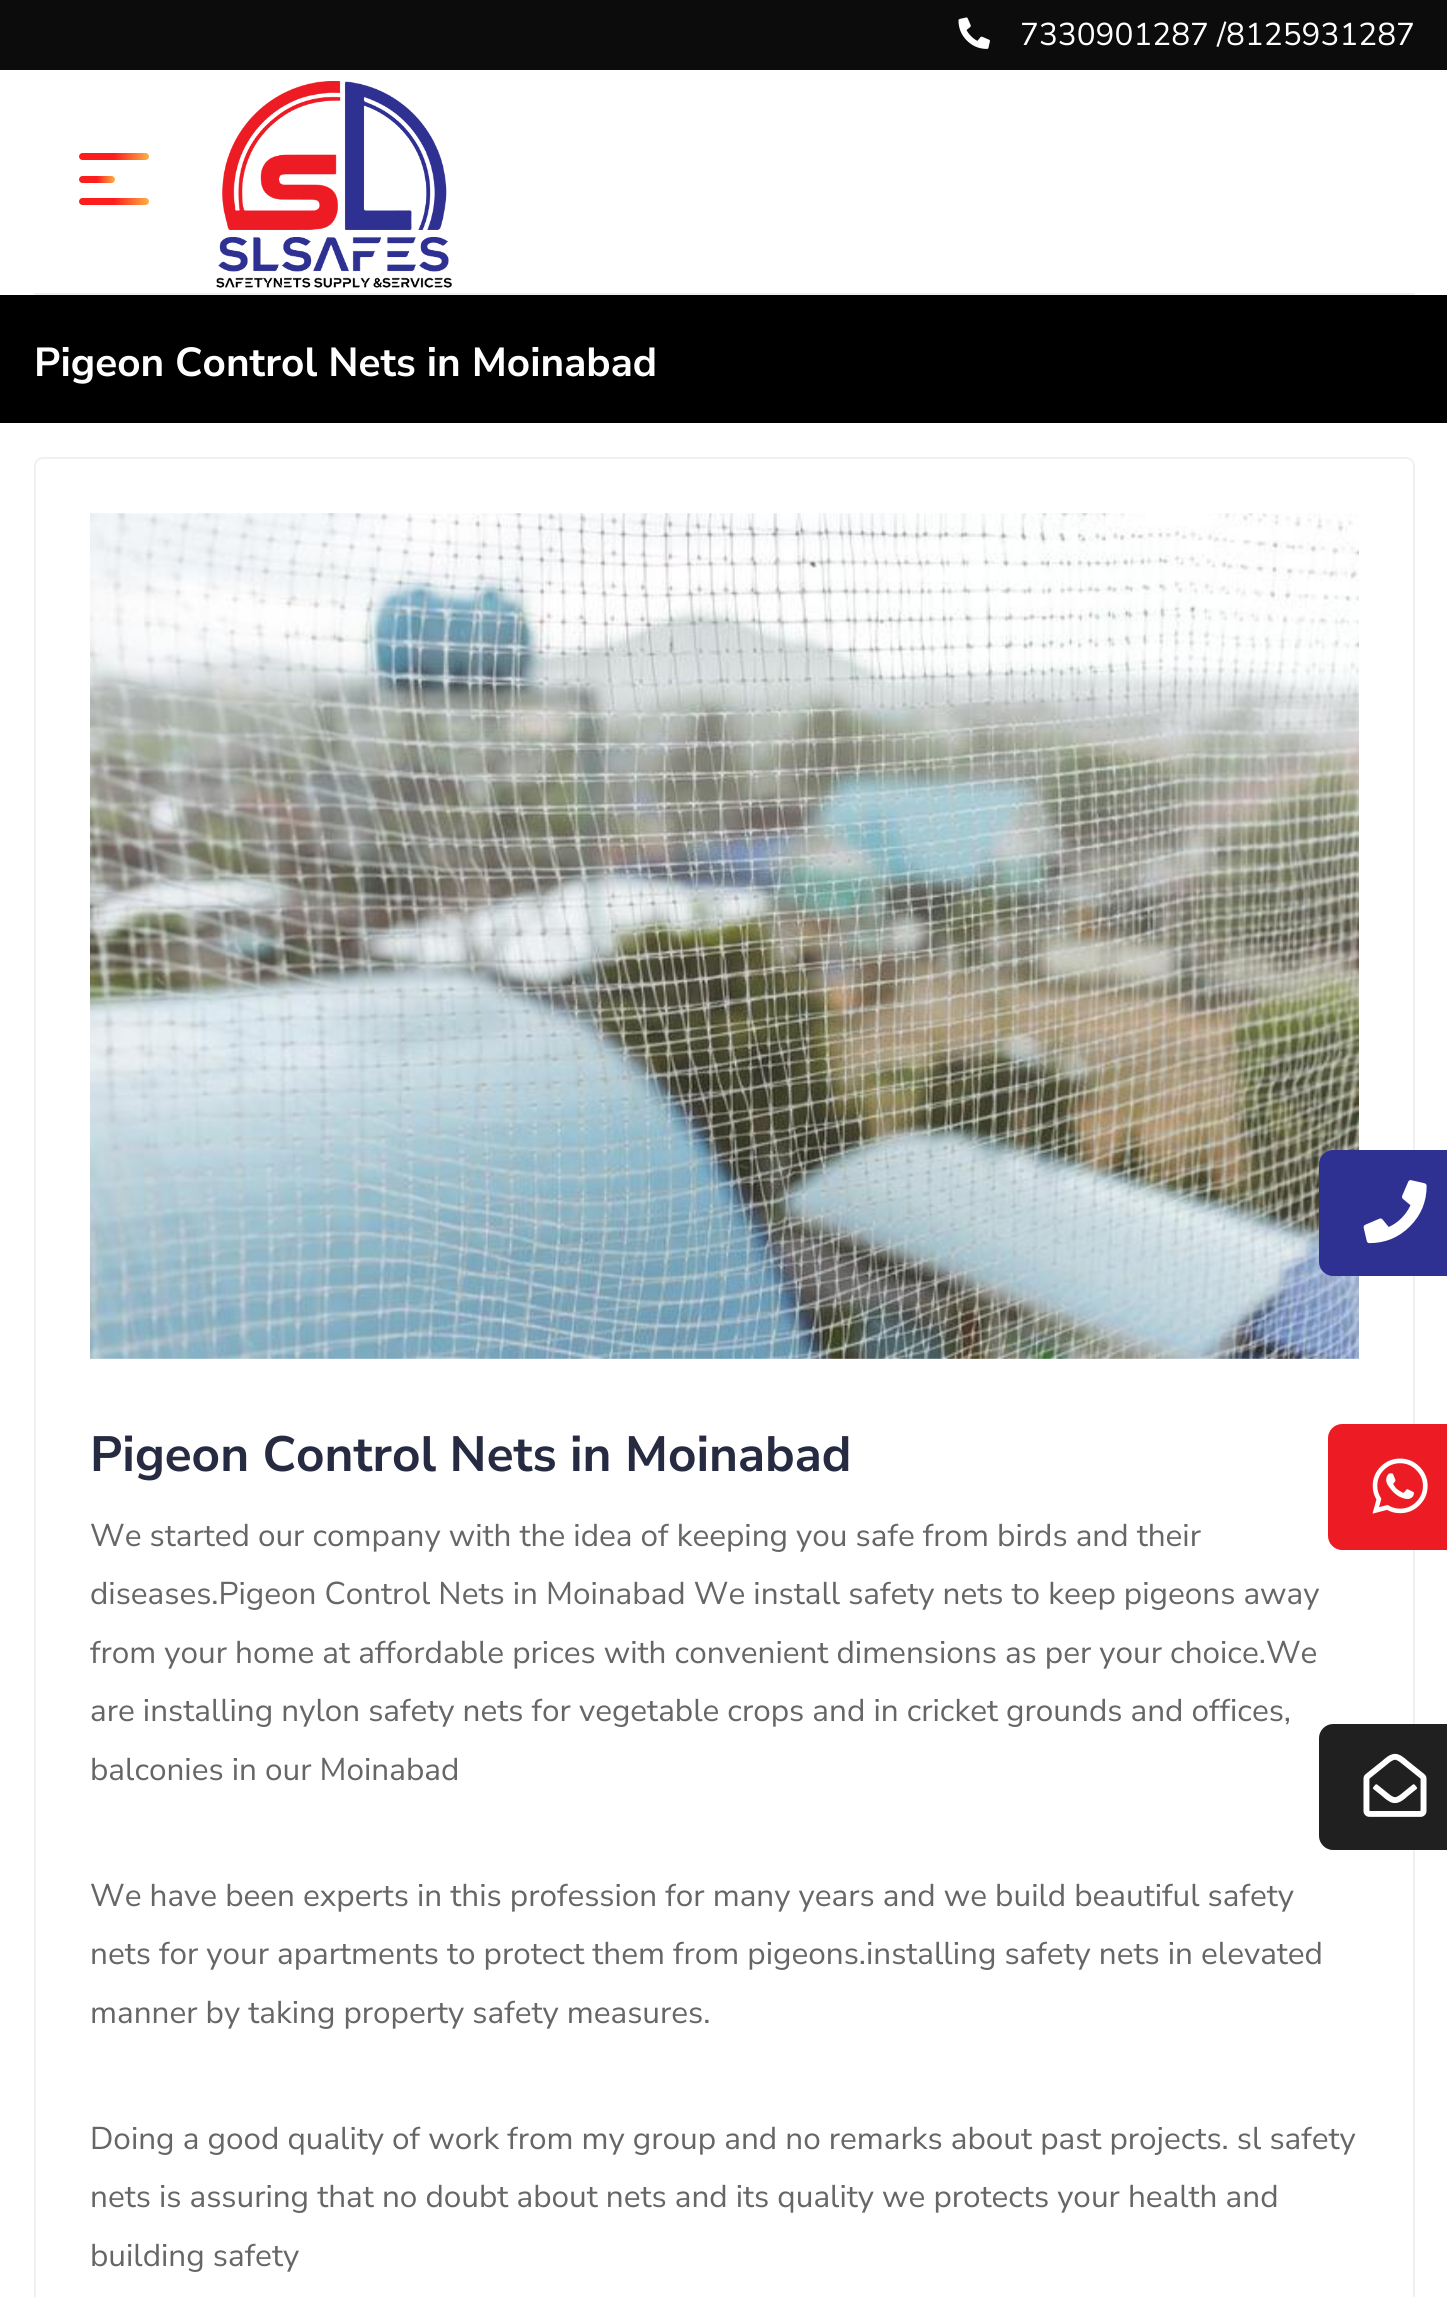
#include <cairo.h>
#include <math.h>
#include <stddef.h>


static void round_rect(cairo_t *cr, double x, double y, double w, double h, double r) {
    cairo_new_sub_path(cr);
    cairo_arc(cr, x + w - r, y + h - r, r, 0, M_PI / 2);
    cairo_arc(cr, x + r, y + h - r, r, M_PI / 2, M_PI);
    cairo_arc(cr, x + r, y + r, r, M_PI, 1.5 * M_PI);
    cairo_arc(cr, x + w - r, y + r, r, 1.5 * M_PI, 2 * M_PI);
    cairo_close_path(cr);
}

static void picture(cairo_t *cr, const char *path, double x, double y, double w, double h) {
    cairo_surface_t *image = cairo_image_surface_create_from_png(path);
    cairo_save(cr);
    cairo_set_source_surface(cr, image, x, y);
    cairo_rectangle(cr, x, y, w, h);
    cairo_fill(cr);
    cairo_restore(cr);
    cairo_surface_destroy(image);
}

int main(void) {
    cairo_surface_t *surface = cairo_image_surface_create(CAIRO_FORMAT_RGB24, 1447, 2297);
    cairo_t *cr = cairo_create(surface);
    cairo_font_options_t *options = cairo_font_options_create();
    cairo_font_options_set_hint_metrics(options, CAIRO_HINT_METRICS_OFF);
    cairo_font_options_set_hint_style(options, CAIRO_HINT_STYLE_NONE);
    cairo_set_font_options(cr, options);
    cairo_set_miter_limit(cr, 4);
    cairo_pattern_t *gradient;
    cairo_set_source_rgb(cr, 1, 1, 1);
    cairo_paint(cr);
    cairo_set_source_rgb(cr, 0.047, 0.047, 0.047);
    cairo_rectangle(cr, 0, 0, 1447, 70);
    cairo_fill(cr);
    picture(cr, "img1.png", 958, 17, 32, 32);
    cairo_select_font_face(cr, "Nunito Sans", CAIRO_FONT_SLANT_NORMAL, CAIRO_FONT_WEIGHT_NORMAL);
    cairo_set_font_size(cr, 31.5);
    cairo_set_source_rgb(cr, 1, 1, 1);
    cairo_move_to(cr, 1020, 45);
    cairo_show_text(cr, "7330901287 /8125931287");
    cairo_set_source_rgb(cr, 0.941, 0.941, 0.941);
    cairo_rectangle(cr, 34, 293, 1381, 2);
    cairo_fill(cr);
    gradient = cairo_pattern_create_linear(79, 156, 149, 156);
    cairo_pattern_add_color_stop_rgba(gradient, 0.5, 0.992, 0.114, 0.114, 1);
    cairo_pattern_add_color_stop_rgba(gradient, 1, 0.988, 0.69, 0.271, 1);
    cairo_set_source(cr, gradient);
    cairo_pattern_destroy(gradient);
    round_rect(cr, 79, 153, 70, 7, 3.5);
    cairo_fill(cr);
    gradient = cairo_pattern_create_linear(79, 179, 115, 179);
    cairo_pattern_add_color_stop_rgba(gradient, 0.5, 0.992, 0.114, 0.114, 1);
    cairo_pattern_add_color_stop_rgba(gradient, 1, 0.988, 0.69, 0.271, 1);
    cairo_set_source(cr, gradient);
    cairo_pattern_destroy(gradient);
    round_rect(cr, 79, 176, 36, 7, 3.5);
    cairo_fill(cr);
    gradient = cairo_pattern_create_linear(79, 201, 149, 201);
    cairo_pattern_add_color_stop_rgba(gradient, 0.5, 0.992, 0.114, 0.114, 1);
    cairo_pattern_add_color_stop_rgba(gradient, 1, 0.988, 0.69, 0.271, 1);
    cairo_set_source(cr, gradient);
    cairo_pattern_destroy(gradient);
    round_rect(cr, 79, 198, 70, 7, 3.5);
    cairo_fill(cr);
    picture(cr, "img2.png", 216, 81, 236, 207);
    cairo_set_source_rgb(cr, 0, 0, 0);
    cairo_rectangle(cr, 0, 295, 1447, 128);
    cairo_fill(cr);
    cairo_select_font_face(cr, "Nunito Sans", CAIRO_FONT_SLANT_NORMAL, CAIRO_FONT_WEIGHT_BOLD);
    cairo_set_font_size(cr, 40.5);
    cairo_set_source_rgb(cr, 1, 1, 1);
    cairo_move_to(cr, 34, 376);
    cairo_show_text(cr, "Pigeon Control Nets in Moinabad");
    round_rect(cr, 35, 458, 1379, 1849, 8);
    cairo_set_source_rgb(cr, 0.941, 0.941, 0.941);
    cairo_stroke(cr);
    picture(cr, "img3.png", 90, 513, 1269, 846);
    cairo_set_font_size(cr, 49.5);
    cairo_set_source_rgb(cr, 0.153, 0.169, 0.255);
    cairo_move_to(cr, 90, 1471);
    cairo_show_text(cr, "Pigeon Control Nets in Moinabad");
    cairo_select_font_face(cr, "Nunito Sans", CAIRO_FONT_SLANT_NORMAL, CAIRO_FONT_WEIGHT_NORMAL);
    cairo_set_font_size(cr, 31.5);
    cairo_set_source_rgb(cr, 0.4, 0.4, 0.4);
    cairo_move_to(cr, 90, 1546);
    cairo_show_text(cr, "We started our company with the idea of keeping you safe from birds and their");
    cairo_move_to(cr, 90, 1604);
    cairo_show_text(cr, "diseases.Pigeon Control Nets in Moinabad We install safety nets to keep pigeons away");
    cairo_move_to(cr, 90, 1663);
    cairo_show_text(cr, "from your home at affordable prices with convenient dimensions as per your choice.We");
    cairo_move_to(cr, 90, 1721);
    cairo_show_text(cr, "are installing nylon safety nets for vegetable crops and in cricket grounds and offices,");
    cairo_move_to(cr, 90, 1780);
    cairo_show_text(cr, "balconies in our Moinabad");
    cairo_move_to(cr, 90, 1906);
    cairo_show_text(cr, "We have been experts in this profession for many years and we build beautiful safety");
    cairo_move_to(cr, 90, 1964);
    cairo_show_text(cr, "nets for your apartments to protect them from pigeons.installing safety nets in elevated");
    cairo_move_to(cr, 90, 2023);
    cairo_show_text(cr, "manner by taking property safety measures.");
    cairo_move_to(cr, 90, 2149);
    cairo_show_text(cr, "Doing a good quality of work from my group and no remarks about past projects. sl safety");
    cairo_move_to(cr, 90, 2207);
    cairo_show_text(cr, "nets is assuring that no doubt about nets and its quality we protects your health and");
    cairo_move_to(cr, 90, 2266);
    cairo_show_text(cr, "building safety");
    cairo_set_source_rgb(cr, 0.18, 0.192, 0.573);
    cairo_new_path(cr);
    cairo_move_to(cr, 1333, 1150);
    cairo_line_to(cr, 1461, 1150);
    cairo_line_to(cr, 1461, 1276);
    cairo_line_to(cr, 1333, 1276);
    cairo_curve_to(cr, 1325.5, 1276, 1319, 1269.5, 1319, 1262);
    cairo_line_to(cr, 1319, 1164);
    cairo_curve_to(cr, 1319, 1156.5, 1325.5, 1150, 1333, 1150);
    cairo_close_path(cr);
    cairo_fill(cr);
    picture(cr, "img4.png", 1363, 1180, 64, 64);
    cairo_set_source_rgb(cr, 0.929, 0.11, 0.141);
    cairo_new_path(cr);
    cairo_move_to(cr, 1342, 1424);
    cairo_line_to(cr, 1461, 1424);
    cairo_line_to(cr, 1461, 1550);
    cairo_line_to(cr, 1342, 1550);
    cairo_curve_to(cr, 1334.5, 1550, 1328, 1543.5, 1328, 1536);
    cairo_line_to(cr, 1328, 1438);
    cairo_curve_to(cr, 1328, 1430.5, 1334.5, 1424, 1342, 1424);
    cairo_close_path(cr);
    cairo_fill(cr);
    picture(cr, "img5.png", 1372, 1458, 56, 56);
    cairo_set_source_rgb(cr, 0.122, 0.125, 0.122);
    cairo_new_path(cr);
    cairo_move_to(cr, 1333, 1724);
    cairo_line_to(cr, 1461, 1724);
    cairo_line_to(cr, 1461, 1850);
    cairo_line_to(cr, 1333, 1850);
    cairo_curve_to(cr, 1325.5, 1850, 1319, 1843.5, 1319, 1836);
    cairo_line_to(cr, 1319, 1738);
    cairo_curve_to(cr, 1319, 1730.5, 1325.5, 1724, 1333, 1724);
    cairo_close_path(cr);
    cairo_fill(cr);
    picture(cr, "img6.png", 1363, 1753, 64, 64);
    cairo_surface_write_to_png(surface, "page.png");
    cairo_font_options_destroy(options);
    cairo_destroy(cr);
    cairo_surface_destroy(surface);
    return 0;
}
